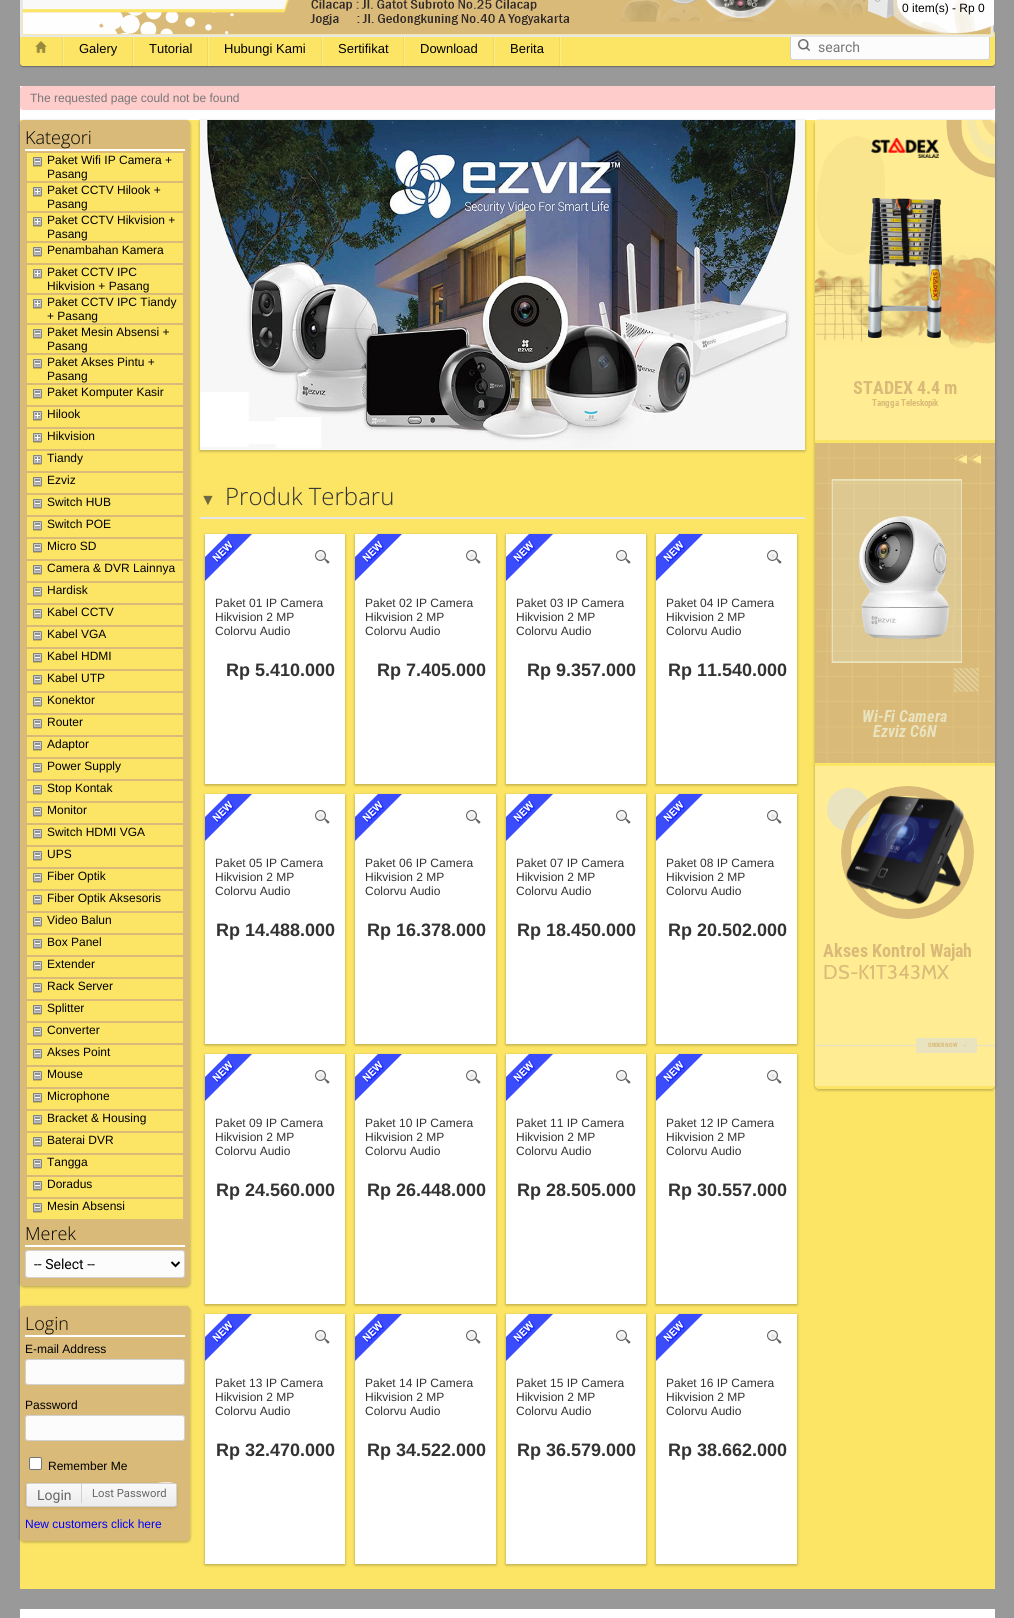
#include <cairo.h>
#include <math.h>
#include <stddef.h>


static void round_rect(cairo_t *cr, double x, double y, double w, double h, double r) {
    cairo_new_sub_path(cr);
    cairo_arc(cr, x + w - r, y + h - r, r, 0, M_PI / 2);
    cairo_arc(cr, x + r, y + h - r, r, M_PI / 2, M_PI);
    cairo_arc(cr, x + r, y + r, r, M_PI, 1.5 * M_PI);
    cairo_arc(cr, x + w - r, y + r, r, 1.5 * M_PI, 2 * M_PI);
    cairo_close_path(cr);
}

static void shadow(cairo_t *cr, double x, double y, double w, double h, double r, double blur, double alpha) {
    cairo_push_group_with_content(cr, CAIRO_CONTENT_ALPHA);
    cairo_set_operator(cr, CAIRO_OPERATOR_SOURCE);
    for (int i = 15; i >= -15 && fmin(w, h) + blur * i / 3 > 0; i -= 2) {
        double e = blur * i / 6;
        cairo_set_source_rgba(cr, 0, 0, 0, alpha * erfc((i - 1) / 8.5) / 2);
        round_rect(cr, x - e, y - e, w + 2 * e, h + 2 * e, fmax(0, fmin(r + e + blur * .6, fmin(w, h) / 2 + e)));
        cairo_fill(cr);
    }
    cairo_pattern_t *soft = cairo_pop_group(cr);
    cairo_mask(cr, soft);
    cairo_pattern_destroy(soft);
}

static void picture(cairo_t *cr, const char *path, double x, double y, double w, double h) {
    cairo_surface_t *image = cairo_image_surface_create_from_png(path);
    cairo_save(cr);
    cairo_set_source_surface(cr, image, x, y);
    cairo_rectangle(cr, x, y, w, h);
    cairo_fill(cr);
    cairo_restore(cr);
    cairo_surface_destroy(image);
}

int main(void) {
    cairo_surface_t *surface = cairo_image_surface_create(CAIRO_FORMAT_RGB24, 1014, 1618);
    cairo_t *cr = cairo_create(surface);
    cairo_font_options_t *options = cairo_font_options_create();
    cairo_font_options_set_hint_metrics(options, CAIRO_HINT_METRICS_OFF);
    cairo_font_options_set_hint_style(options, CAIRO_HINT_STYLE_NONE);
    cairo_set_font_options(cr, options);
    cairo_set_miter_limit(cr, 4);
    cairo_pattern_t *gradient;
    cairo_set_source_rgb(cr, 0.6, 0.6, 0.6);
    cairo_paint(cr);
    cairo_set_source_rgb(cr, 0, 0, 0);
    shadow(cr, 20, 32, 975, 35, 3, 0.5, 0.3);
    cairo_set_source_rgb(cr, 0.988, 0.898, 0.396);
    round_rect(cr, 20, 31, 975, 35, 3);
    cairo_fill(cr);
    cairo_set_source_rgb(cr, 0.992, 0.925, 0.549);
    cairo_rectangle(cr, 560, 31, 1, 35);
    cairo_fill(cr);
    cairo_set_source_rgb(cr, 0.937, 0.855, 0.376);
    cairo_rectangle(cr, 62, 31, 1, 35);
    cairo_fill(cr);
    cairo_rectangle(cr, 132, 31, 1, 35);
    cairo_fill(cr);
    cairo_set_source_rgb(cr, 0.992, 0.925, 0.549);
    cairo_rectangle(cr, 63, 31, 1, 35);
    cairo_fill(cr);
    cairo_set_source_rgb(cr, 0.937, 0.855, 0.376);
    cairo_rectangle(cr, 207, 31, 1, 35);
    cairo_fill(cr);
    cairo_set_source_rgb(cr, 0.992, 0.925, 0.549);
    cairo_rectangle(cr, 133, 31, 1, 35);
    cairo_fill(cr);
    cairo_set_source_rgb(cr, 0.937, 0.855, 0.376);
    cairo_rectangle(cr, 321, 31, 1, 35);
    cairo_fill(cr);
    cairo_set_source_rgb(cr, 0.992, 0.925, 0.549);
    cairo_rectangle(cr, 208, 31, 1, 35);
    cairo_fill(cr);
    cairo_set_source_rgb(cr, 0.937, 0.855, 0.376);
    cairo_rectangle(cr, 403, 31, 1, 35);
    cairo_fill(cr);
    cairo_set_source_rgb(cr, 0.992, 0.925, 0.549);
    cairo_rectangle(cr, 322, 31, 1, 35);
    cairo_fill(cr);
    cairo_set_source_rgb(cr, 0.937, 0.855, 0.376);
    cairo_rectangle(cr, 493, 31, 1, 35);
    cairo_fill(cr);
    cairo_set_source_rgb(cr, 0.992, 0.925, 0.549);
    cairo_rectangle(cr, 404, 31, 1, 35);
    cairo_fill(cr);
    cairo_set_source_rgb(cr, 0.937, 0.855, 0.376);
    cairo_rectangle(cr, 559, 31, 1, 35);
    cairo_fill(cr);
    cairo_set_source_rgb(cr, 0.992, 0.925, 0.549);
    cairo_rectangle(cr, 494, 31, 1, 35);
    cairo_fill(cr);
    cairo_set_source_rgb(cr, 0.988, 0.988, 0.988);
    round_rect(cr, 790.5, 34.5, 199, 25, 2.5);
    cairo_fill_preserve(cr);
    cairo_set_source_rgb(cr, 0.82, 0.82, 0.82);
    cairo_set_line_width(cr, 1);
    cairo_stroke(cr);
    picture(cr, "img1.png", 20, 0, 974, 37);
    picture(cr, "img2.png", 867, 0, 27, 19);
    cairo_select_font_face(cr, "Liberation Sans", CAIRO_FONT_SLANT_NORMAL, CAIRO_FONT_WEIGHT_NORMAL);
    cairo_set_font_size(cr, 12);
    cairo_set_source_rgb(cr, 0, 0, 0);
    cairo_move_to(cr, 902, 12);
    cairo_show_text(cr, "0 item(s) - Rp 0");
    picture(cr, "img3.png", 35, 41, 12, 12);
    cairo_set_font_size(cr, 13);
    cairo_move_to(cr, 79, 53);
    cairo_show_text(cr, "Galery");
    cairo_move_to(cr, 149, 53);
    cairo_show_text(cr, "Tutorial");
    cairo_move_to(cr, 224, 53);
    cairo_show_text(cr, "Hubungi Kami");
    cairo_move_to(cr, 338, 53);
    cairo_show_text(cr, "Sertifikat");
    cairo_move_to(cr, 420, 53);
    cairo_show_text(cr, "Download");
    cairo_move_to(cr, 510, 53);
    cairo_show_text(cr, "Berita");
    picture(cr, "img4.png", 798, 39, 12, 12);
    cairo_select_font_face(cr, "Roboto", CAIRO_FONT_SLANT_NORMAL, CAIRO_FONT_WEIGHT_NORMAL);
    cairo_set_font_size(cr, 14);
    cairo_set_source_rgb(cr, 0.467, 0.467, 0.467);
    cairo_move_to(cr, 818, 52);
    cairo_show_text(cr, "search");
    cairo_set_source_rgb(cr, 1, 1, 1);
    cairo_rectangle(cr, 20, 86, 975, 34);
    cairo_fill(cr);
    cairo_set_source_rgb(cr, 1, 0.8, 0.8);
    round_rect(cr, 20, 86, 975, 24, 3);
    cairo_fill(cr);
    cairo_select_font_face(cr, "Liberation Sans", CAIRO_FONT_SLANT_NORMAL, CAIRO_FONT_WEIGHT_NORMAL);
    cairo_set_font_size(cr, 12);
    cairo_set_source_rgb(cr, 0.467, 0.467, 0.467);
    cairo_move_to(cr, 30, 102);
    cairo_show_text(cr, "The requested page could not be found");
    cairo_set_source_rgb(cr, 0.988, 0.898, 0.396);
    cairo_rectangle(cr, 20, 120, 975, 1469);
    cairo_fill(cr);
    cairo_set_source_rgb(cr, 0, 0, 0);
    shadow(cr, 20, 121, 170, 1166, 4, 1.5, 0.3);
    cairo_set_source_rgb(cr, 0.851, 0.729, 0.471);
    round_rect(cr, 20, 120, 170, 1166, 4);
    cairo_fill(cr);
    cairo_set_source_rgb(cr, 1, 1, 1);
    cairo_rectangle(cr, 25, 149, 160, 2);
    cairo_fill(cr);
    cairo_select_font_face(cr, "Open Sans Light", CAIRO_FONT_SLANT_NORMAL, CAIRO_FONT_WEIGHT_NORMAL);
    cairo_set_font_size(cr, 18);
    cairo_set_source_rgb(cr, 0, 0, 0);
    cairo_move_to(cr, 25, 144);
    cairo_show_text(cr, "Kategori");
    cairo_set_source_rgb(cr, 0.988, 0.898, 0.396);
    cairo_rectangle(cr, 27, 153, 156, 28);
    cairo_fill(cr);
    picture(cr, "img5.png", 33, 157, 9, 10);
    cairo_select_font_face(cr, "Liberation Sans", CAIRO_FONT_SLANT_NORMAL, CAIRO_FONT_WEIGHT_NORMAL);
    cairo_set_font_size(cr, 12);
    cairo_set_source_rgb(cr, 0, 0, 0);
    cairo_move_to(cr, 47, 164);
    cairo_show_text(cr, "Paket Wifi IP Camera +");
    cairo_move_to(cr, 47, 178);
    cairo_show_text(cr, "Pasang");
    cairo_set_source_rgb(cr, 0.988, 0.898, 0.396);
    cairo_rectangle(cr, 27, 183, 156, 28);
    cairo_fill(cr);
    picture(cr, "img6.png", 33, 187, 9, 10);
    cairo_set_source_rgb(cr, 0, 0, 0);
    cairo_move_to(cr, 47, 194);
    cairo_show_text(cr, "Paket CCTV Hilook +");
    cairo_move_to(cr, 47, 208);
    cairo_show_text(cr, "Pasang");
    cairo_set_source_rgb(cr, 0.988, 0.898, 0.396);
    cairo_rectangle(cr, 27, 213, 156, 28);
    cairo_fill(cr);
    picture(cr, "img6.png", 33, 217, 9, 10);
    cairo_set_source_rgb(cr, 0, 0, 0);
    cairo_move_to(cr, 47, 224);
    cairo_show_text(cr, "Paket CCTV Hikvision +");
    cairo_move_to(cr, 47, 238);
    cairo_show_text(cr, "Pasang");
    cairo_set_source_rgb(cr, 0.988, 0.898, 0.396);
    cairo_rectangle(cr, 27, 243, 156, 20);
    cairo_fill(cr);
    picture(cr, "img5.png", 33, 247, 9, 10);
    cairo_set_source_rgb(cr, 0, 0, 0);
    cairo_move_to(cr, 47, 254);
    cairo_show_text(cr, "Penambahan Kamera");
    cairo_set_source_rgb(cr, 0.988, 0.898, 0.396);
    cairo_rectangle(cr, 27, 265, 156, 28);
    cairo_fill(cr);
    picture(cr, "img6.png", 33, 269, 9, 10);
    cairo_set_source_rgb(cr, 0, 0, 0);
    cairo_move_to(cr, 47, 276);
    cairo_show_text(cr, "Paket CCTV IPC");
    cairo_move_to(cr, 47, 290);
    cairo_show_text(cr, "Hikvision + Pasang");
    cairo_set_source_rgb(cr, 0.988, 0.898, 0.396);
    cairo_rectangle(cr, 27, 295, 156, 28);
    cairo_fill(cr);
    picture(cr, "img6.png", 33, 299, 9, 10);
    cairo_set_source_rgb(cr, 0, 0, 0);
    cairo_move_to(cr, 47, 306);
    cairo_show_text(cr, "Paket CCTV IPC Tiandy");
    cairo_move_to(cr, 47, 320);
    cairo_show_text(cr, "+ Pasang");
    cairo_set_source_rgb(cr, 0.988, 0.898, 0.396);
    cairo_rectangle(cr, 27, 325, 156, 28);
    cairo_fill(cr);
    picture(cr, "img5.png", 33, 329, 9, 10);
    cairo_set_source_rgb(cr, 0, 0, 0);
    cairo_move_to(cr, 47, 336);
    cairo_show_text(cr, "Paket Mesin Absensi +");
    cairo_move_to(cr, 47, 350);
    cairo_show_text(cr, "Pasang");
    cairo_set_source_rgb(cr, 0.988, 0.898, 0.396);
    cairo_rectangle(cr, 27, 355, 156, 28);
    cairo_fill(cr);
    picture(cr, "img5.png", 33, 359, 9, 10);
    cairo_set_source_rgb(cr, 0, 0, 0);
    cairo_move_to(cr, 47, 366);
    cairo_show_text(cr, "Paket Akses Pintu +");
    cairo_move_to(cr, 47, 380);
    cairo_show_text(cr, "Pasang");
    cairo_set_source_rgb(cr, 0.988, 0.898, 0.396);
    cairo_rectangle(cr, 27, 385, 156, 20);
    cairo_fill(cr);
    picture(cr, "img5.png", 33, 389, 9, 10);
    cairo_set_source_rgb(cr, 0, 0, 0);
    cairo_move_to(cr, 47, 396);
    cairo_show_text(cr, "Paket Komputer Kasir");
    cairo_set_source_rgb(cr, 0.988, 0.898, 0.396);
    cairo_rectangle(cr, 27, 407, 156, 20);
    cairo_fill(cr);
    picture(cr, "img6.png", 33, 411, 9, 10);
    cairo_set_source_rgb(cr, 0, 0, 0);
    cairo_move_to(cr, 47, 418);
    cairo_show_text(cr, "Hilook");
    cairo_set_source_rgb(cr, 0.988, 0.898, 0.396);
    cairo_rectangle(cr, 27, 429, 156, 20);
    cairo_fill(cr);
    picture(cr, "img6.png", 33, 433, 9, 10);
    cairo_set_source_rgb(cr, 0, 0, 0);
    cairo_move_to(cr, 47, 440);
    cairo_show_text(cr, "Hikvision");
    cairo_set_source_rgb(cr, 0.988, 0.898, 0.396);
    cairo_rectangle(cr, 27, 451, 156, 20);
    cairo_fill(cr);
    picture(cr, "img6.png", 33, 455, 9, 10);
    cairo_set_source_rgb(cr, 0, 0, 0);
    cairo_move_to(cr, 47, 462);
    cairo_show_text(cr, "Tiandy");
    cairo_set_source_rgb(cr, 0.988, 0.898, 0.396);
    cairo_rectangle(cr, 27, 473, 156, 20);
    cairo_fill(cr);
    picture(cr, "img5.png", 33, 477, 9, 10);
    cairo_set_source_rgb(cr, 0, 0, 0);
    cairo_move_to(cr, 47, 484);
    cairo_show_text(cr, "Ezviz");
    cairo_set_source_rgb(cr, 0.988, 0.898, 0.396);
    cairo_rectangle(cr, 27, 495, 156, 20);
    cairo_fill(cr);
    picture(cr, "img5.png", 33, 499, 9, 10);
    cairo_set_source_rgb(cr, 0, 0, 0);
    cairo_move_to(cr, 47, 506);
    cairo_show_text(cr, "Switch HUB");
    cairo_set_source_rgb(cr, 0.988, 0.898, 0.396);
    cairo_rectangle(cr, 27, 517, 156, 20);
    cairo_fill(cr);
    picture(cr, "img5.png", 33, 521, 9, 10);
    cairo_set_source_rgb(cr, 0, 0, 0);
    cairo_move_to(cr, 47, 528);
    cairo_show_text(cr, "Switch POE");
    cairo_set_source_rgb(cr, 0.988, 0.898, 0.396);
    cairo_rectangle(cr, 27, 539, 156, 20);
    cairo_fill(cr);
    picture(cr, "img5.png", 33, 543, 9, 10);
    cairo_set_source_rgb(cr, 0, 0, 0);
    cairo_move_to(cr, 47, 550);
    cairo_show_text(cr, "Micro SD");
    cairo_set_source_rgb(cr, 0.988, 0.898, 0.396);
    cairo_rectangle(cr, 27, 561, 156, 20);
    cairo_fill(cr);
    picture(cr, "img5.png", 33, 565, 9, 10);
    cairo_set_source_rgb(cr, 0, 0, 0);
    cairo_move_to(cr, 47, 572);
    cairo_show_text(cr, "Camera & DVR Lainnya");
    cairo_set_source_rgb(cr, 0.988, 0.898, 0.396);
    cairo_rectangle(cr, 27, 583, 156, 20);
    cairo_fill(cr);
    picture(cr, "img5.png", 33, 587, 9, 10);
    cairo_set_source_rgb(cr, 0, 0, 0);
    cairo_move_to(cr, 47, 594);
    cairo_show_text(cr, "Hardisk");
    cairo_set_source_rgb(cr, 0.988, 0.898, 0.396);
    cairo_rectangle(cr, 27, 605, 156, 20);
    cairo_fill(cr);
    picture(cr, "img5.png", 33, 609, 9, 10);
    cairo_set_source_rgb(cr, 0, 0, 0);
    cairo_move_to(cr, 47, 616);
    cairo_show_text(cr, "Kabel CCTV");
    cairo_set_source_rgb(cr, 0.988, 0.898, 0.396);
    cairo_rectangle(cr, 27, 627, 156, 20);
    cairo_fill(cr);
    picture(cr, "img5.png", 33, 631, 9, 10);
    cairo_set_source_rgb(cr, 0, 0, 0);
    cairo_move_to(cr, 47, 638);
    cairo_show_text(cr, "Kabel VGA");
    cairo_set_source_rgb(cr, 0.988, 0.898, 0.396);
    cairo_rectangle(cr, 27, 649, 156, 20);
    cairo_fill(cr);
    picture(cr, "img5.png", 33, 653, 9, 10);
    cairo_set_source_rgb(cr, 0, 0, 0);
    cairo_move_to(cr, 47, 660);
    cairo_show_text(cr, "Kabel HDMI");
    cairo_set_source_rgb(cr, 0.988, 0.898, 0.396);
    cairo_rectangle(cr, 27, 671, 156, 20);
    cairo_fill(cr);
    picture(cr, "img5.png", 33, 675, 9, 10);
    cairo_set_source_rgb(cr, 0, 0, 0);
    cairo_move_to(cr, 47, 682);
    cairo_show_text(cr, "Kabel UTP");
    cairo_set_source_rgb(cr, 0.988, 0.898, 0.396);
    cairo_rectangle(cr, 27, 693, 156, 20);
    cairo_fill(cr);
    picture(cr, "img5.png", 33, 697, 9, 10);
    cairo_set_source_rgb(cr, 0, 0, 0);
    cairo_move_to(cr, 47, 704);
    cairo_show_text(cr, "Konektor");
    cairo_set_source_rgb(cr, 0.988, 0.898, 0.396);
    cairo_rectangle(cr, 27, 715, 156, 20);
    cairo_fill(cr);
    picture(cr, "img5.png", 33, 719, 9, 10);
    cairo_set_source_rgb(cr, 0, 0, 0);
    cairo_move_to(cr, 47, 726);
    cairo_show_text(cr, "Router");
    cairo_set_source_rgb(cr, 0.988, 0.898, 0.396);
    cairo_rectangle(cr, 27, 737, 156, 20);
    cairo_fill(cr);
    picture(cr, "img5.png", 33, 741, 9, 10);
    cairo_set_source_rgb(cr, 0, 0, 0);
    cairo_move_to(cr, 47, 748);
    cairo_show_text(cr, "Adaptor");
    cairo_set_source_rgb(cr, 0.988, 0.898, 0.396);
    cairo_rectangle(cr, 27, 759, 156, 20);
    cairo_fill(cr);
    picture(cr, "img5.png", 33, 763, 9, 10);
    cairo_set_source_rgb(cr, 0, 0, 0);
    cairo_move_to(cr, 47, 770);
    cairo_show_text(cr, "Power Supply");
    cairo_set_source_rgb(cr, 0.988, 0.898, 0.396);
    cairo_rectangle(cr, 27, 781, 156, 20);
    cairo_fill(cr);
    picture(cr, "img5.png", 33, 785, 9, 10);
    cairo_set_source_rgb(cr, 0, 0, 0);
    cairo_move_to(cr, 47, 792);
    cairo_show_text(cr, "Stop Kontak");
    cairo_set_source_rgb(cr, 0.988, 0.898, 0.396);
    cairo_rectangle(cr, 27, 803, 156, 20);
    cairo_fill(cr);
    picture(cr, "img5.png", 33, 807, 9, 10);
    cairo_set_source_rgb(cr, 0, 0, 0);
    cairo_move_to(cr, 47, 814);
    cairo_show_text(cr, "Monitor");
    cairo_set_source_rgb(cr, 0.988, 0.898, 0.396);
    cairo_rectangle(cr, 27, 825, 156, 20);
    cairo_fill(cr);
    picture(cr, "img5.png", 33, 829, 9, 10);
    cairo_set_source_rgb(cr, 0, 0, 0);
    cairo_move_to(cr, 47, 836);
    cairo_show_text(cr, "Switch HDMI VGA");
    cairo_set_source_rgb(cr, 0.988, 0.898, 0.396);
    cairo_rectangle(cr, 27, 847, 156, 20);
    cairo_fill(cr);
    picture(cr, "img5.png", 33, 851, 9, 10);
    cairo_set_source_rgb(cr, 0, 0, 0);
    cairo_move_to(cr, 47, 858);
    cairo_show_text(cr, "UPS");
    cairo_set_source_rgb(cr, 0.988, 0.898, 0.396);
    cairo_rectangle(cr, 27, 869, 156, 20);
    cairo_fill(cr);
    picture(cr, "img5.png", 33, 873, 9, 10);
    cairo_set_source_rgb(cr, 0, 0, 0);
    cairo_move_to(cr, 47, 880);
    cairo_show_text(cr, "Fiber Optik");
    cairo_set_source_rgb(cr, 0.988, 0.898, 0.396);
    cairo_rectangle(cr, 27, 891, 156, 20);
    cairo_fill(cr);
    picture(cr, "img5.png", 33, 895, 9, 10);
    cairo_set_source_rgb(cr, 0, 0, 0);
    cairo_move_to(cr, 47, 902);
    cairo_show_text(cr, "Fiber Optik Aksesoris");
    cairo_set_source_rgb(cr, 0.988, 0.898, 0.396);
    cairo_rectangle(cr, 27, 913, 156, 20);
    cairo_fill(cr);
    picture(cr, "img5.png", 33, 917, 9, 10);
    cairo_set_source_rgb(cr, 0, 0, 0);
    cairo_move_to(cr, 47, 924);
    cairo_show_text(cr, "Video Balun");
    cairo_set_source_rgb(cr, 0.988, 0.898, 0.396);
    cairo_rectangle(cr, 27, 935, 156, 20);
    cairo_fill(cr);
    picture(cr, "img5.png", 33, 939, 9, 10);
    cairo_set_source_rgb(cr, 0, 0, 0);
    cairo_move_to(cr, 47, 946);
    cairo_show_text(cr, "Box Panel");
    cairo_set_source_rgb(cr, 0.988, 0.898, 0.396);
    cairo_rectangle(cr, 27, 957, 156, 20);
    cairo_fill(cr);
    picture(cr, "img5.png", 33, 961, 9, 10);
    cairo_set_source_rgb(cr, 0, 0, 0);
    cairo_move_to(cr, 47, 968);
    cairo_show_text(cr, "Extender");
    cairo_set_source_rgb(cr, 0.988, 0.898, 0.396);
    cairo_rectangle(cr, 27, 979, 156, 20);
    cairo_fill(cr);
    picture(cr, "img5.png", 33, 983, 9, 10);
    cairo_set_source_rgb(cr, 0, 0, 0);
    cairo_move_to(cr, 47, 990);
    cairo_show_text(cr, "Rack Server");
    cairo_set_source_rgb(cr, 0.988, 0.898, 0.396);
    cairo_rectangle(cr, 27, 1001, 156, 20);
    cairo_fill(cr);
    picture(cr, "img5.png", 33, 1005, 9, 10);
    cairo_set_source_rgb(cr, 0, 0, 0);
    cairo_move_to(cr, 47, 1012);
    cairo_show_text(cr, "Splitter");
    cairo_set_source_rgb(cr, 0.988, 0.898, 0.396);
    cairo_rectangle(cr, 27, 1023, 156, 20);
    cairo_fill(cr);
    picture(cr, "img5.png", 33, 1027, 9, 10);
    cairo_set_source_rgb(cr, 0, 0, 0);
    cairo_move_to(cr, 47, 1034);
    cairo_show_text(cr, "Converter");
    cairo_set_source_rgb(cr, 0.988, 0.898, 0.396);
    cairo_rectangle(cr, 27, 1045, 156, 20);
    cairo_fill(cr);
    picture(cr, "img5.png", 33, 1049, 9, 10);
    cairo_set_source_rgb(cr, 0, 0, 0);
    cairo_move_to(cr, 47, 1056);
    cairo_show_text(cr, "Akses Point");
    cairo_set_source_rgb(cr, 0.988, 0.898, 0.396);
    cairo_rectangle(cr, 27, 1067, 156, 20);
    cairo_fill(cr);
    picture(cr, "img5.png", 33, 1071, 9, 10);
    cairo_set_source_rgb(cr, 0, 0, 0);
    cairo_move_to(cr, 47, 1078);
    cairo_show_text(cr, "Mouse");
    cairo_set_source_rgb(cr, 0.988, 0.898, 0.396);
    cairo_rectangle(cr, 27, 1089, 156, 20);
    cairo_fill(cr);
    picture(cr, "img5.png", 33, 1093, 9, 10);
    cairo_set_source_rgb(cr, 0, 0, 0);
    cairo_move_to(cr, 47, 1100);
    cairo_show_text(cr, "Microphone");
    cairo_set_source_rgb(cr, 0.988, 0.898, 0.396);
    cairo_rectangle(cr, 27, 1111, 156, 20);
    cairo_fill(cr);
    picture(cr, "img5.png", 33, 1115, 9, 10);
    cairo_set_source_rgb(cr, 0, 0, 0);
    cairo_move_to(cr, 47, 1122);
    cairo_show_text(cr, "Bracket & Housing");
    cairo_set_source_rgb(cr, 0.988, 0.898, 0.396);
    cairo_rectangle(cr, 27, 1133, 156, 20);
    cairo_fill(cr);
    picture(cr, "img5.png", 33, 1137, 9, 10);
    cairo_set_source_rgb(cr, 0, 0, 0);
    cairo_move_to(cr, 47, 1144);
    cairo_show_text(cr, "Baterai DVR");
    cairo_set_source_rgb(cr, 0.988, 0.898, 0.396);
    cairo_rectangle(cr, 27, 1155, 156, 20);
    cairo_fill(cr);
    picture(cr, "img5.png", 33, 1159, 9, 10);
    cairo_set_source_rgb(cr, 0, 0, 0);
    cairo_move_to(cr, 47, 1166);
    cairo_show_text(cr, "Tangga");
    cairo_set_source_rgb(cr, 0.988, 0.898, 0.396);
    cairo_rectangle(cr, 27, 1177, 156, 20);
    cairo_fill(cr);
    picture(cr, "img5.png", 33, 1181, 9, 10);
    cairo_set_source_rgb(cr, 0, 0, 0);
    cairo_move_to(cr, 47, 1188);
    cairo_show_text(cr, "Doradus");
    cairo_set_source_rgb(cr, 0.988, 0.898, 0.396);
    cairo_rectangle(cr, 27, 1199, 156, 20);
    cairo_fill(cr);
    picture(cr, "img5.png", 33, 1203, 9, 10);
    cairo_set_source_rgb(cr, 0, 0, 0);
    cairo_move_to(cr, 47, 1210);
    cairo_show_text(cr, "Mesin Absensi");
    cairo_set_source_rgb(cr, 1, 1, 1);
    cairo_rectangle(cr, 25, 1245, 160, 2);
    cairo_fill(cr);
    cairo_select_font_face(cr, "Open Sans Light", CAIRO_FONT_SLANT_NORMAL, CAIRO_FONT_WEIGHT_NORMAL);
    cairo_set_font_size(cr, 18);
    cairo_set_source_rgb(cr, 0, 0, 0);
    cairo_move_to(cr, 25, 1240);
    cairo_show_text(cr, "Merek");
    cairo_set_source_rgb(cr, 0.988, 0.988, 0.988);
    round_rect(cr, 25.5, 1250.5, 159, 27, 2.5);
    cairo_fill_preserve(cr);
    cairo_set_source_rgb(cr, 0.82, 0.82, 0.82);
    cairo_stroke(cr);
    cairo_new_path(cr);
    cairo_move_to(cr, 171.5, 1262);
    cairo_line_to(cr, 175.5, 1266);
    cairo_line_to(cr, 179.5, 1262);
    cairo_set_source_rgb(cr, 0, 0, 0);
    cairo_set_line_width(cr, 2);
    cairo_stroke(cr);
    cairo_select_font_face(cr, "Roboto", CAIRO_FONT_SLANT_NORMAL, CAIRO_FONT_WEIGHT_NORMAL);
    cairo_set_font_size(cr, 14);
    cairo_move_to(cr, 34, 1269);
    cairo_show_text(cr, "-- Select --");
    cairo_set_source_rgb(cr, 0, 0, 0);
    shadow(cr, 20, 1307, 170, 235, 4, 1.5, 0.3);
    cairo_set_source_rgb(cr, 0.851, 0.729, 0.471);
    round_rect(cr, 20, 1306, 170, 235, 4);
    cairo_fill(cr);
    cairo_set_source_rgb(cr, 1, 1, 1);
    cairo_rectangle(cr, 25, 1335, 160, 2);
    cairo_fill(cr);
    cairo_select_font_face(cr, "Open Sans Light", CAIRO_FONT_SLANT_NORMAL, CAIRO_FONT_WEIGHT_NORMAL);
    cairo_set_font_size(cr, 18);
    cairo_set_source_rgb(cr, 0, 0, 0);
    cairo_move_to(cr, 25, 1330);
    cairo_show_text(cr, "Login");
    cairo_select_font_face(cr, "Liberation Sans", CAIRO_FONT_SLANT_NORMAL, CAIRO_FONT_WEIGHT_NORMAL);
    cairo_set_font_size(cr, 12);
    cairo_move_to(cr, 25, 1353);
    cairo_show_text(cr, "E-mail Address");
    cairo_set_source_rgb(cr, 0.988, 0.988, 0.988);
    round_rect(cr, 25.5, 1359.5, 159, 25, 2.5);
    cairo_fill_preserve(cr);
    cairo_set_source_rgb(cr, 0.82, 0.82, 0.82);
    cairo_set_line_width(cr, 1);
    cairo_stroke(cr);
    cairo_set_source_rgb(cr, 0, 0, 0);
    cairo_move_to(cr, 25, 1409);
    cairo_show_text(cr, "Password");
    cairo_set_source_rgb(cr, 0.988, 0.988, 0.988);
    round_rect(cr, 25.5, 1415.5, 159, 25, 2.5);
    cairo_fill_preserve(cr);
    cairo_set_source_rgb(cr, 0.82, 0.82, 0.82);
    cairo_stroke(cr);
    cairo_set_source_rgb(cr, 1, 1, 1);
    round_rect(cr, 29.5, 1457.5, 12, 12, 1.5);
    cairo_fill_preserve(cr);
    cairo_set_source_rgb(cr, 0.463, 0.463, 0.463);
    cairo_stroke(cr);
    cairo_set_source_rgb(cr, 0, 0, 0);
    cairo_move_to(cr, 48, 1470);
    cairo_show_text(cr, "Remember Me");
    cairo_set_source_rgb(cr, 0, 0, 0);
    shadow(cr, 26, 1484, 151, 24, 3, 1.5, 0.1);
    cairo_save(cr);
    round_rect(cr, 26, 1483, 151, 24, 3);
    cairo_clip(cr);
    gradient = cairo_pattern_create_linear(102, 1484, 102, 1506);
    cairo_pattern_add_color_stop_rgba(gradient, 0, 0.976, 0.976, 0.976, 1);
    cairo_pattern_add_color_stop_rgba(gradient, 1, 0.925, 0.925, 0.925, 1);
    cairo_set_source(cr, gradient);
    cairo_pattern_destroy(gradient);
    cairo_rectangle(cr, 26, 1484, 151, 22);
    cairo_fill(cr);
    cairo_restore(cr);
    cairo_set_source_rgba(cr, 1, 1, 1, 0.8);
    cairo_new_path(cr);
    cairo_move_to(cr, 29, 1485);
    cairo_line_to(cr, 174, 1485);
    cairo_curve_to(cr, 175, 1485, 176, 1486, 176, 1487);
    cairo_curve_to(cr, 176, 1478, 153, 1484, 150, 1484);
    cairo_line_to(cr, 28, 1484);
    cairo_curve_to(cr, 27, 1485, 27, 1486, 27, 1487);
    cairo_curve_to(cr, 27, 1486, 28, 1485, 29, 1485);
    cairo_close_path(cr);
    cairo_fill(cr);
    round_rect(cr, 26.5, 1483.5, 150, 23, 2.5);
    cairo_set_source_rgb(cr, 0.82, 0.82, 0.82);
    cairo_stroke(cr);
    gradient = cairo_pattern_create_linear(54, 1484, 54, 1506);
    cairo_pattern_add_color_stop_rgba(gradient, 0, 0.976, 0.976, 0.976, 1);
    cairo_pattern_add_color_stop_rgba(gradient, 1, 0.925, 0.925, 0.925, 1);
    cairo_set_source(cr, gradient);
    cairo_pattern_destroy(gradient);
    cairo_rectangle(cr, 27, 1484, 54, 22);
    cairo_fill(cr);
    cairo_select_font_face(cr, "Roboto", CAIRO_FONT_SLANT_NORMAL, CAIRO_FONT_WEIGHT_NORMAL);
    cairo_set_font_size(cr, 14);
    cairo_set_source_rgb(cr, 0.4, 0.4, 0.4);
    cairo_move_to(cr, 37, 1500);
    cairo_show_text(cr, "Login");
    gradient = cairo_pattern_create_linear(129, 1484, 129, 1503);
    cairo_pattern_add_color_stop_rgba(gradient, 0, 0.976, 0.976, 0.976, 1);
    cairo_pattern_add_color_stop_rgba(gradient, 1, 0.925, 0.925, 0.925, 1);
    cairo_set_source(cr, gradient);
    cairo_pattern_destroy(gradient);
    cairo_rectangle(cr, 82, 1484, 94, 1);
    cairo_fill(cr);
    cairo_set_source_rgb(cr, 0.82, 0.82, 0.82);
    cairo_rectangle(cr, 81, 1484, 1, 19);
    cairo_fill(cr);
    cairo_set_font_size(cr, 11.25);
    cairo_set_source_rgb(cr, 0.4, 0.4, 0.4);
    cairo_move_to(cr, 92, 1497);
    cairo_show_text(cr, "Lost Password");
    cairo_select_font_face(cr, "Liberation Sans", CAIRO_FONT_SLANT_NORMAL, CAIRO_FONT_WEIGHT_NORMAL);
    cairo_set_font_size(cr, 12);
    cairo_set_source_rgb(cr, 0, 0, 1);
    cairo_move_to(cr, 25, 1528);
    cairo_show_text(cr, "New customers click here");
    cairo_set_source_rgb(cr, 0, 0, 0);
    shadow(cr, 200, 121, 605, 330, 0, 1.5, 0.3);
    picture(cr, "img7.png", 200, 120, 605, 330);
    cairo_set_source_rgb(cr, 0.898, 0.898, 0.898);
    cairo_rectangle(cr, 200, 517, 605, 2);
    cairo_fill(cr);
    cairo_set_font_size(cr, 16);
    cairo_set_source_rgb(cr, 0.435, 0.408, 0.259);
    cairo_move_to(cr, 200, 505);
    cairo_show_text(cr, "▼");
    cairo_select_font_face(cr, "Open Sans Light", CAIRO_FONT_SLANT_NORMAL, CAIRO_FONT_WEIGHT_NORMAL);
    cairo_set_font_size(cr, 24);
    cairo_set_source_rgb(cr, 0.2, 0.2, 0.2);
    cairo_move_to(cr, 225, 505);
    cairo_show_text(cr, "Produk Terbaru");
    cairo_set_source_rgb(cr, 0, 0, 0);
    shadow(cr, 205, 535, 140, 250, 0, 1.5, 0.3);
    cairo_set_source_rgb(cr, 1, 1, 1);
    cairo_rectangle(cr, 205, 534, 140, 250);
    cairo_fill(cr);
    picture(cr, "img8.png", 315, 550, 15, 14);
    picture(cr, "img9.png", 205, 534, 47, 47);
    cairo_select_font_face(cr, "Liberation Sans", CAIRO_FONT_SLANT_NORMAL, CAIRO_FONT_WEIGHT_NORMAL);
    cairo_set_font_size(cr, 12);
    cairo_set_source_rgb(cr, 0.2, 0.2, 0.2);
    cairo_move_to(cr, 215, 607);
    cairo_show_text(cr, "Paket 01 IP Camera");
    cairo_move_to(cr, 215, 621);
    cairo_show_text(cr, "Hikvision 2 MP");
    cairo_move_to(cr, 215, 635);
    cairo_show_text(cr, "Colorvu Audio");
    cairo_select_font_face(cr, "Liberation Sans", CAIRO_FONT_SLANT_NORMAL, CAIRO_FONT_WEIGHT_BOLD);
    cairo_set_font_size(cr, 18);
    cairo_move_to(cr, 226, 676);
    cairo_show_text(cr, "Rp 5.410.000");
    cairo_set_source_rgb(cr, 0, 0, 0);
    shadow(cr, 355, 535, 141, 250, 0, 1.5, 0.3);
    cairo_set_source_rgb(cr, 1, 1, 1);
    cairo_rectangle(cr, 355, 534, 141, 250);
    cairo_fill(cr);
    picture(cr, "img8.png", 466, 550, 15, 14);
    picture(cr, "img9.png", 355, 534, 47, 47);
    cairo_select_font_face(cr, "Liberation Sans", CAIRO_FONT_SLANT_NORMAL, CAIRO_FONT_WEIGHT_NORMAL);
    cairo_set_font_size(cr, 12);
    cairo_set_source_rgb(cr, 0.2, 0.2, 0.2);
    cairo_move_to(cr, 365, 607);
    cairo_show_text(cr, "Paket 02 IP Camera");
    cairo_move_to(cr, 365, 621);
    cairo_show_text(cr, "Hikvision 2 MP");
    cairo_move_to(cr, 365, 635);
    cairo_show_text(cr, "Colorvu Audio");
    cairo_select_font_face(cr, "Liberation Sans", CAIRO_FONT_SLANT_NORMAL, CAIRO_FONT_WEIGHT_BOLD);
    cairo_set_font_size(cr, 18);
    cairo_move_to(cr, 377, 676);
    cairo_show_text(cr, "Rp 7.405.000");
    cairo_set_source_rgb(cr, 0, 0, 0);
    shadow(cr, 506, 535, 140, 250, 0, 1.5, 0.3);
    cairo_set_source_rgb(cr, 1, 1, 1);
    cairo_rectangle(cr, 506, 534, 140, 250);
    cairo_fill(cr);
    picture(cr, "img8.png", 616, 550, 15, 14);
    picture(cr, "img9.png", 506, 534, 47, 47);
    cairo_select_font_face(cr, "Liberation Sans", CAIRO_FONT_SLANT_NORMAL, CAIRO_FONT_WEIGHT_NORMAL);
    cairo_set_font_size(cr, 12);
    cairo_set_source_rgb(cr, 0.2, 0.2, 0.2);
    cairo_move_to(cr, 516, 607);
    cairo_show_text(cr, "Paket 03 IP Camera");
    cairo_move_to(cr, 516, 621);
    cairo_show_text(cr, "Hikvision 2 MP");
    cairo_move_to(cr, 516, 635);
    cairo_show_text(cr, "Colorvu Audio");
    cairo_select_font_face(cr, "Liberation Sans", CAIRO_FONT_SLANT_NORMAL, CAIRO_FONT_WEIGHT_BOLD);
    cairo_set_font_size(cr, 18);
    cairo_move_to(cr, 527, 676);
    cairo_show_text(cr, "Rp 9.357.000");
    cairo_set_source_rgb(cr, 0, 0, 0);
    shadow(cr, 656, 535, 141, 250, 0, 1.5, 0.3);
    cairo_set_source_rgb(cr, 1, 1, 1);
    cairo_rectangle(cr, 656, 534, 141, 250);
    cairo_fill(cr);
    picture(cr, "img8.png", 767, 550, 15, 14);
    picture(cr, "img9.png", 656, 534, 47, 47);
    cairo_select_font_face(cr, "Liberation Sans", CAIRO_FONT_SLANT_NORMAL, CAIRO_FONT_WEIGHT_NORMAL);
    cairo_set_font_size(cr, 12);
    cairo_set_source_rgb(cr, 0.2, 0.2, 0.2);
    cairo_move_to(cr, 666, 607);
    cairo_show_text(cr, "Paket 04 IP Camera");
    cairo_move_to(cr, 666, 621);
    cairo_show_text(cr, "Hikvision 2 MP");
    cairo_move_to(cr, 666, 635);
    cairo_show_text(cr, "Colorvu Audio");
    cairo_select_font_face(cr, "Liberation Sans", CAIRO_FONT_SLANT_NORMAL, CAIRO_FONT_WEIGHT_BOLD);
    cairo_set_font_size(cr, 18);
    cairo_move_to(cr, 668, 676);
    cairo_show_text(cr, "Rp 11.540.000");
    cairo_set_source_rgb(cr, 0, 0, 0);
    shadow(cr, 205, 795, 140, 250, 0, 1.5, 0.3);
    cairo_set_source_rgb(cr, 1, 1, 1);
    cairo_rectangle(cr, 205, 794, 140, 250);
    cairo_fill(cr);
    picture(cr, "img8.png", 315, 810, 15, 14);
    picture(cr, "img9.png", 205, 794, 47, 47);
    cairo_select_font_face(cr, "Liberation Sans", CAIRO_FONT_SLANT_NORMAL, CAIRO_FONT_WEIGHT_NORMAL);
    cairo_set_font_size(cr, 12);
    cairo_set_source_rgb(cr, 0.2, 0.2, 0.2);
    cairo_move_to(cr, 215, 867);
    cairo_show_text(cr, "Paket 05 IP Camera");
    cairo_move_to(cr, 215, 881);
    cairo_show_text(cr, "Hikvision 2 MP");
    cairo_move_to(cr, 215, 895);
    cairo_show_text(cr, "Colorvu Audio");
    cairo_select_font_face(cr, "Liberation Sans", CAIRO_FONT_SLANT_NORMAL, CAIRO_FONT_WEIGHT_BOLD);
    cairo_set_font_size(cr, 18);
    cairo_move_to(cr, 216, 936);
    cairo_show_text(cr, "Rp 14.488.000");
    cairo_set_source_rgb(cr, 0, 0, 0);
    shadow(cr, 355, 795, 141, 250, 0, 1.5, 0.3);
    cairo_set_source_rgb(cr, 1, 1, 1);
    cairo_rectangle(cr, 355, 794, 141, 250);
    cairo_fill(cr);
    picture(cr, "img8.png", 466, 810, 15, 14);
    picture(cr, "img9.png", 355, 794, 47, 47);
    cairo_select_font_face(cr, "Liberation Sans", CAIRO_FONT_SLANT_NORMAL, CAIRO_FONT_WEIGHT_NORMAL);
    cairo_set_font_size(cr, 12);
    cairo_set_source_rgb(cr, 0.2, 0.2, 0.2);
    cairo_move_to(cr, 365, 867);
    cairo_show_text(cr, "Paket 06 IP Camera");
    cairo_move_to(cr, 365, 881);
    cairo_show_text(cr, "Hikvision 2 MP");
    cairo_move_to(cr, 365, 895);
    cairo_show_text(cr, "Colorvu Audio");
    cairo_select_font_face(cr, "Liberation Sans", CAIRO_FONT_SLANT_NORMAL, CAIRO_FONT_WEIGHT_BOLD);
    cairo_set_font_size(cr, 18);
    cairo_move_to(cr, 367, 936);
    cairo_show_text(cr, "Rp 16.378.000");
    cairo_set_source_rgb(cr, 0, 0, 0);
    shadow(cr, 506, 795, 140, 250, 0, 1.5, 0.3);
    cairo_set_source_rgb(cr, 1, 1, 1);
    cairo_rectangle(cr, 506, 794, 140, 250);
    cairo_fill(cr);
    picture(cr, "img8.png", 616, 810, 15, 14);
    picture(cr, "img9.png", 506, 794, 47, 47);
    cairo_select_font_face(cr, "Liberation Sans", CAIRO_FONT_SLANT_NORMAL, CAIRO_FONT_WEIGHT_NORMAL);
    cairo_set_font_size(cr, 12);
    cairo_set_source_rgb(cr, 0.2, 0.2, 0.2);
    cairo_move_to(cr, 516, 867);
    cairo_show_text(cr, "Paket 07 IP Camera");
    cairo_move_to(cr, 516, 881);
    cairo_show_text(cr, "Hikvision 2 MP");
    cairo_move_to(cr, 516, 895);
    cairo_show_text(cr, "Colorvu Audio");
    cairo_select_font_face(cr, "Liberation Sans", CAIRO_FONT_SLANT_NORMAL, CAIRO_FONT_WEIGHT_BOLD);
    cairo_set_font_size(cr, 18);
    cairo_move_to(cr, 517, 936);
    cairo_show_text(cr, "Rp 18.450.000");
    cairo_set_source_rgb(cr, 0, 0, 0);
    shadow(cr, 656, 795, 141, 250, 0, 1.5, 0.3);
    cairo_set_source_rgb(cr, 1, 1, 1);
    cairo_rectangle(cr, 656, 794, 141, 250);
    cairo_fill(cr);
    picture(cr, "img8.png", 767, 810, 15, 14);
    picture(cr, "img9.png", 656, 794, 47, 47);
    cairo_select_font_face(cr, "Liberation Sans", CAIRO_FONT_SLANT_NORMAL, CAIRO_FONT_WEIGHT_NORMAL);
    cairo_set_font_size(cr, 12);
    cairo_set_source_rgb(cr, 0.2, 0.2, 0.2);
    cairo_move_to(cr, 666, 867);
    cairo_show_text(cr, "Paket 08 IP Camera");
    cairo_move_to(cr, 666, 881);
    cairo_show_text(cr, "Hikvision 2 MP");
    cairo_move_to(cr, 666, 895);
    cairo_show_text(cr, "Colorvu Audio");
    cairo_select_font_face(cr, "Liberation Sans", CAIRO_FONT_SLANT_NORMAL, CAIRO_FONT_WEIGHT_BOLD);
    cairo_set_font_size(cr, 18);
    cairo_move_to(cr, 668, 936);
    cairo_show_text(cr, "Rp 20.502.000");
    cairo_set_source_rgb(cr, 0, 0, 0);
    shadow(cr, 205, 1055, 140, 250, 0, 1.5, 0.3);
    cairo_set_source_rgb(cr, 1, 1, 1);
    cairo_rectangle(cr, 205, 1054, 140, 250);
    cairo_fill(cr);
    picture(cr, "img8.png", 315, 1070, 15, 14);
    picture(cr, "img9.png", 205, 1054, 47, 47);
    cairo_select_font_face(cr, "Liberation Sans", CAIRO_FONT_SLANT_NORMAL, CAIRO_FONT_WEIGHT_NORMAL);
    cairo_set_font_size(cr, 12);
    cairo_set_source_rgb(cr, 0.2, 0.2, 0.2);
    cairo_move_to(cr, 215, 1127);
    cairo_show_text(cr, "Paket 09 IP Camera");
    cairo_move_to(cr, 215, 1141);
    cairo_show_text(cr, "Hikvision 2 MP");
    cairo_move_to(cr, 215, 1155);
    cairo_show_text(cr, "Colorvu Audio");
    cairo_select_font_face(cr, "Liberation Sans", CAIRO_FONT_SLANT_NORMAL, CAIRO_FONT_WEIGHT_BOLD);
    cairo_set_font_size(cr, 18);
    cairo_move_to(cr, 216, 1196);
    cairo_show_text(cr, "Rp 24.560.000");
    cairo_set_source_rgb(cr, 0, 0, 0);
    shadow(cr, 355, 1055, 141, 250, 0, 1.5, 0.3);
    cairo_set_source_rgb(cr, 1, 1, 1);
    cairo_rectangle(cr, 355, 1054, 141, 250);
    cairo_fill(cr);
    picture(cr, "img8.png", 466, 1070, 15, 14);
    picture(cr, "img9.png", 355, 1054, 47, 47);
    cairo_select_font_face(cr, "Liberation Sans", CAIRO_FONT_SLANT_NORMAL, CAIRO_FONT_WEIGHT_NORMAL);
    cairo_set_font_size(cr, 12);
    cairo_set_source_rgb(cr, 0.2, 0.2, 0.2);
    cairo_move_to(cr, 365, 1127);
    cairo_show_text(cr, "Paket 10 IP Camera");
    cairo_move_to(cr, 365, 1141);
    cairo_show_text(cr, "Hikvision 2 MP");
    cairo_move_to(cr, 365, 1155);
    cairo_show_text(cr, "Colorvu Audio");
    cairo_select_font_face(cr, "Liberation Sans", CAIRO_FONT_SLANT_NORMAL, CAIRO_FONT_WEIGHT_BOLD);
    cairo_set_font_size(cr, 18);
    cairo_move_to(cr, 367, 1196);
    cairo_show_text(cr, "Rp 26.448.000");
    cairo_set_source_rgb(cr, 0, 0, 0);
    shadow(cr, 506, 1055, 140, 250, 0, 1.5, 0.3);
    cairo_set_source_rgb(cr, 1, 1, 1);
    cairo_rectangle(cr, 506, 1054, 140, 250);
    cairo_fill(cr);
    picture(cr, "img8.png", 616, 1070, 15, 14);
    picture(cr, "img9.png", 506, 1054, 47, 47);
    cairo_select_font_face(cr, "Liberation Sans", CAIRO_FONT_SLANT_NORMAL, CAIRO_FONT_WEIGHT_NORMAL);
    cairo_set_font_size(cr, 12);
    cairo_set_source_rgb(cr, 0.2, 0.2, 0.2);
    cairo_move_to(cr, 516, 1127);
    cairo_show_text(cr, "Paket 11 IP Camera");
    cairo_move_to(cr, 516, 1141);
    cairo_show_text(cr, "Hikvision 2 MP");
    cairo_move_to(cr, 516, 1155);
    cairo_show_text(cr, "Colorvu Audio");
    cairo_select_font_face(cr, "Liberation Sans", CAIRO_FONT_SLANT_NORMAL, CAIRO_FONT_WEIGHT_BOLD);
    cairo_set_font_size(cr, 18);
    cairo_move_to(cr, 517, 1196);
    cairo_show_text(cr, "Rp 28.505.000");
    cairo_set_source_rgb(cr, 0, 0, 0);
    shadow(cr, 656, 1055, 141, 250, 0, 1.5, 0.3);
    cairo_set_source_rgb(cr, 1, 1, 1);
    cairo_rectangle(cr, 656, 1054, 141, 250);
    cairo_fill(cr);
    picture(cr, "img8.png", 767, 1070, 15, 14);
    picture(cr, "img9.png", 656, 1054, 47, 47);
    cairo_select_font_face(cr, "Liberation Sans", CAIRO_FONT_SLANT_NORMAL, CAIRO_FONT_WEIGHT_NORMAL);
    cairo_set_font_size(cr, 12);
    cairo_set_source_rgb(cr, 0.2, 0.2, 0.2);
    cairo_move_to(cr, 666, 1127);
    cairo_show_text(cr, "Paket 12 IP Camera");
    cairo_move_to(cr, 666, 1141);
    cairo_show_text(cr, "Hikvision 2 MP");
    cairo_move_to(cr, 666, 1155);
    cairo_show_text(cr, "Colorvu Audio");
    cairo_select_font_face(cr, "Liberation Sans", CAIRO_FONT_SLANT_NORMAL, CAIRO_FONT_WEIGHT_BOLD);
    cairo_set_font_size(cr, 18);
    cairo_move_to(cr, 668, 1196);
    cairo_show_text(cr, "Rp 30.557.000");
    cairo_set_source_rgb(cr, 0, 0, 0);
    shadow(cr, 205, 1315, 140, 250, 0, 1.5, 0.3);
    cairo_set_source_rgb(cr, 1, 1, 1);
    cairo_rectangle(cr, 205, 1314, 140, 250);
    cairo_fill(cr);
    picture(cr, "img8.png", 315, 1330, 15, 14);
    picture(cr, "img9.png", 205, 1314, 47, 47);
    cairo_select_font_face(cr, "Liberation Sans", CAIRO_FONT_SLANT_NORMAL, CAIRO_FONT_WEIGHT_NORMAL);
    cairo_set_font_size(cr, 12);
    cairo_set_source_rgb(cr, 0.2, 0.2, 0.2);
    cairo_move_to(cr, 215, 1387);
    cairo_show_text(cr, "Paket 13 IP Camera");
    cairo_move_to(cr, 215, 1401);
    cairo_show_text(cr, "Hikvision 2 MP");
    cairo_move_to(cr, 215, 1415);
    cairo_show_text(cr, "Colorvu Audio");
    cairo_select_font_face(cr, "Liberation Sans", CAIRO_FONT_SLANT_NORMAL, CAIRO_FONT_WEIGHT_BOLD);
    cairo_set_font_size(cr, 18);
    cairo_move_to(cr, 216, 1456);
    cairo_show_text(cr, "Rp 32.470.000");
    cairo_set_source_rgb(cr, 0, 0, 0);
    shadow(cr, 355, 1315, 141, 250, 0, 1.5, 0.3);
    cairo_set_source_rgb(cr, 1, 1, 1);
    cairo_rectangle(cr, 355, 1314, 141, 250);
    cairo_fill(cr);
    picture(cr, "img8.png", 466, 1330, 15, 14);
    picture(cr, "img9.png", 355, 1314, 47, 47);
    cairo_select_font_face(cr, "Liberation Sans", CAIRO_FONT_SLANT_NORMAL, CAIRO_FONT_WEIGHT_NORMAL);
    cairo_set_font_size(cr, 12);
    cairo_set_source_rgb(cr, 0.2, 0.2, 0.2);
    cairo_move_to(cr, 365, 1387);
    cairo_show_text(cr, "Paket 14 IP Camera");
    cairo_move_to(cr, 365, 1401);
    cairo_show_text(cr, "Hikvision 2 MP");
    cairo_move_to(cr, 365, 1415);
    cairo_show_text(cr, "Colorvu Audio");
    cairo_select_font_face(cr, "Liberation Sans", CAIRO_FONT_SLANT_NORMAL, CAIRO_FONT_WEIGHT_BOLD);
    cairo_set_font_size(cr, 18);
    cairo_move_to(cr, 367, 1456);
    cairo_show_text(cr, "Rp 34.522.000");
    cairo_set_source_rgb(cr, 0, 0, 0);
    shadow(cr, 506, 1315, 140, 250, 0, 1.5, 0.3);
    cairo_set_source_rgb(cr, 1, 1, 1);
    cairo_rectangle(cr, 506, 1314, 140, 250);
    cairo_fill(cr);
    picture(cr, "img8.png", 616, 1330, 15, 14);
    picture(cr, "img9.png", 506, 1314, 47, 47);
    cairo_select_font_face(cr, "Liberation Sans", CAIRO_FONT_SLANT_NORMAL, CAIRO_FONT_WEIGHT_NORMAL);
    cairo_set_font_size(cr, 12);
    cairo_set_source_rgb(cr, 0.2, 0.2, 0.2);
    cairo_move_to(cr, 516, 1387);
    cairo_show_text(cr, "Paket 15 IP Camera");
    cairo_move_to(cr, 516, 1401);
    cairo_show_text(cr, "Hikvision 2 MP");
    cairo_move_to(cr, 516, 1415);
    cairo_show_text(cr, "Colorvu Audio");
    cairo_select_font_face(cr, "Liberation Sans", CAIRO_FONT_SLANT_NORMAL, CAIRO_FONT_WEIGHT_BOLD);
    cairo_set_font_size(cr, 18);
    cairo_move_to(cr, 517, 1456);
    cairo_show_text(cr, "Rp 36.579.000");
    cairo_set_source_rgb(cr, 0, 0, 0);
    shadow(cr, 656, 1315, 141, 250, 0, 1.5, 0.3);
    cairo_set_source_rgb(cr, 1, 1, 1);
    cairo_rectangle(cr, 656, 1314, 141, 250);
    cairo_fill(cr);
    picture(cr, "img8.png", 767, 1330, 15, 14);
    picture(cr, "img9.png", 656, 1314, 47, 47);
    cairo_select_font_face(cr, "Liberation Sans", CAIRO_FONT_SLANT_NORMAL, CAIRO_FONT_WEIGHT_NORMAL);
    cairo_set_font_size(cr, 12);
    cairo_set_source_rgb(cr, 0.2, 0.2, 0.2);
    cairo_move_to(cr, 666, 1387);
    cairo_show_text(cr, "Paket 16 IP Camera");
    cairo_move_to(cr, 666, 1401);
    cairo_show_text(cr, "Hikvision 2 MP");
    cairo_move_to(cr, 666, 1415);
    cairo_show_text(cr, "Colorvu Audio");
    cairo_select_font_face(cr, "Liberation Sans", CAIRO_FONT_SLANT_NORMAL, CAIRO_FONT_WEIGHT_BOLD);
    cairo_set_font_size(cr, 18);
    cairo_move_to(cr, 668, 1456);
    cairo_show_text(cr, "Rp 38.662.000");
    cairo_save(cr);
    cairo_set_fill_rule(cr, CAIRO_FILL_RULE_EVEN_ODD);
    cairo_new_path(cr);
    cairo_move_to(cr, 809, 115);
    cairo_line_to(cr, 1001, 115);
    cairo_line_to(cr, 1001, 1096);
    cairo_line_to(cr, 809, 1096);
    cairo_close_path(cr);
    cairo_move_to(cr, 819, 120);
    cairo_line_to(cr, 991, 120);
    cairo_curve_to(cr, 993, 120, 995, 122, 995, 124);
    cairo_line_to(cr, 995, 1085);
    cairo_curve_to(cr, 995, 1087, 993, 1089, 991, 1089);
    cairo_line_to(cr, 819, 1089);
    cairo_curve_to(cr, 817, 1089, 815, 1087, 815, 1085);
    cairo_line_to(cr, 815, 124);
    cairo_curve_to(cr, 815, 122, 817, 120, 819, 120);
    cairo_close_path(cr);
    cairo_clip(cr);
    cairo_set_source_rgb(cr, 0, 0, 0);
    shadow(cr, 815, 121, 180, 969, 4, 1.5, 0.3);
    cairo_restore(cr);
    picture(cr, "img10.png", 815, 120, 180, 320);
    picture(cr, "img11.png", 815, 443, 180, 320);
    picture(cr, "img12.png", 815, 766, 180, 320);
    cairo_set_source_rgb(cr, 1, 1, 1);
    cairo_rectangle(cr, 20, 1609, 975, 9);
    cairo_fill(cr);
    cairo_surface_write_to_png(surface, "page.png");
    cairo_font_options_destroy(options);
    cairo_destroy(cr);
    cairo_surface_destroy(surface);
    return 0;
}
